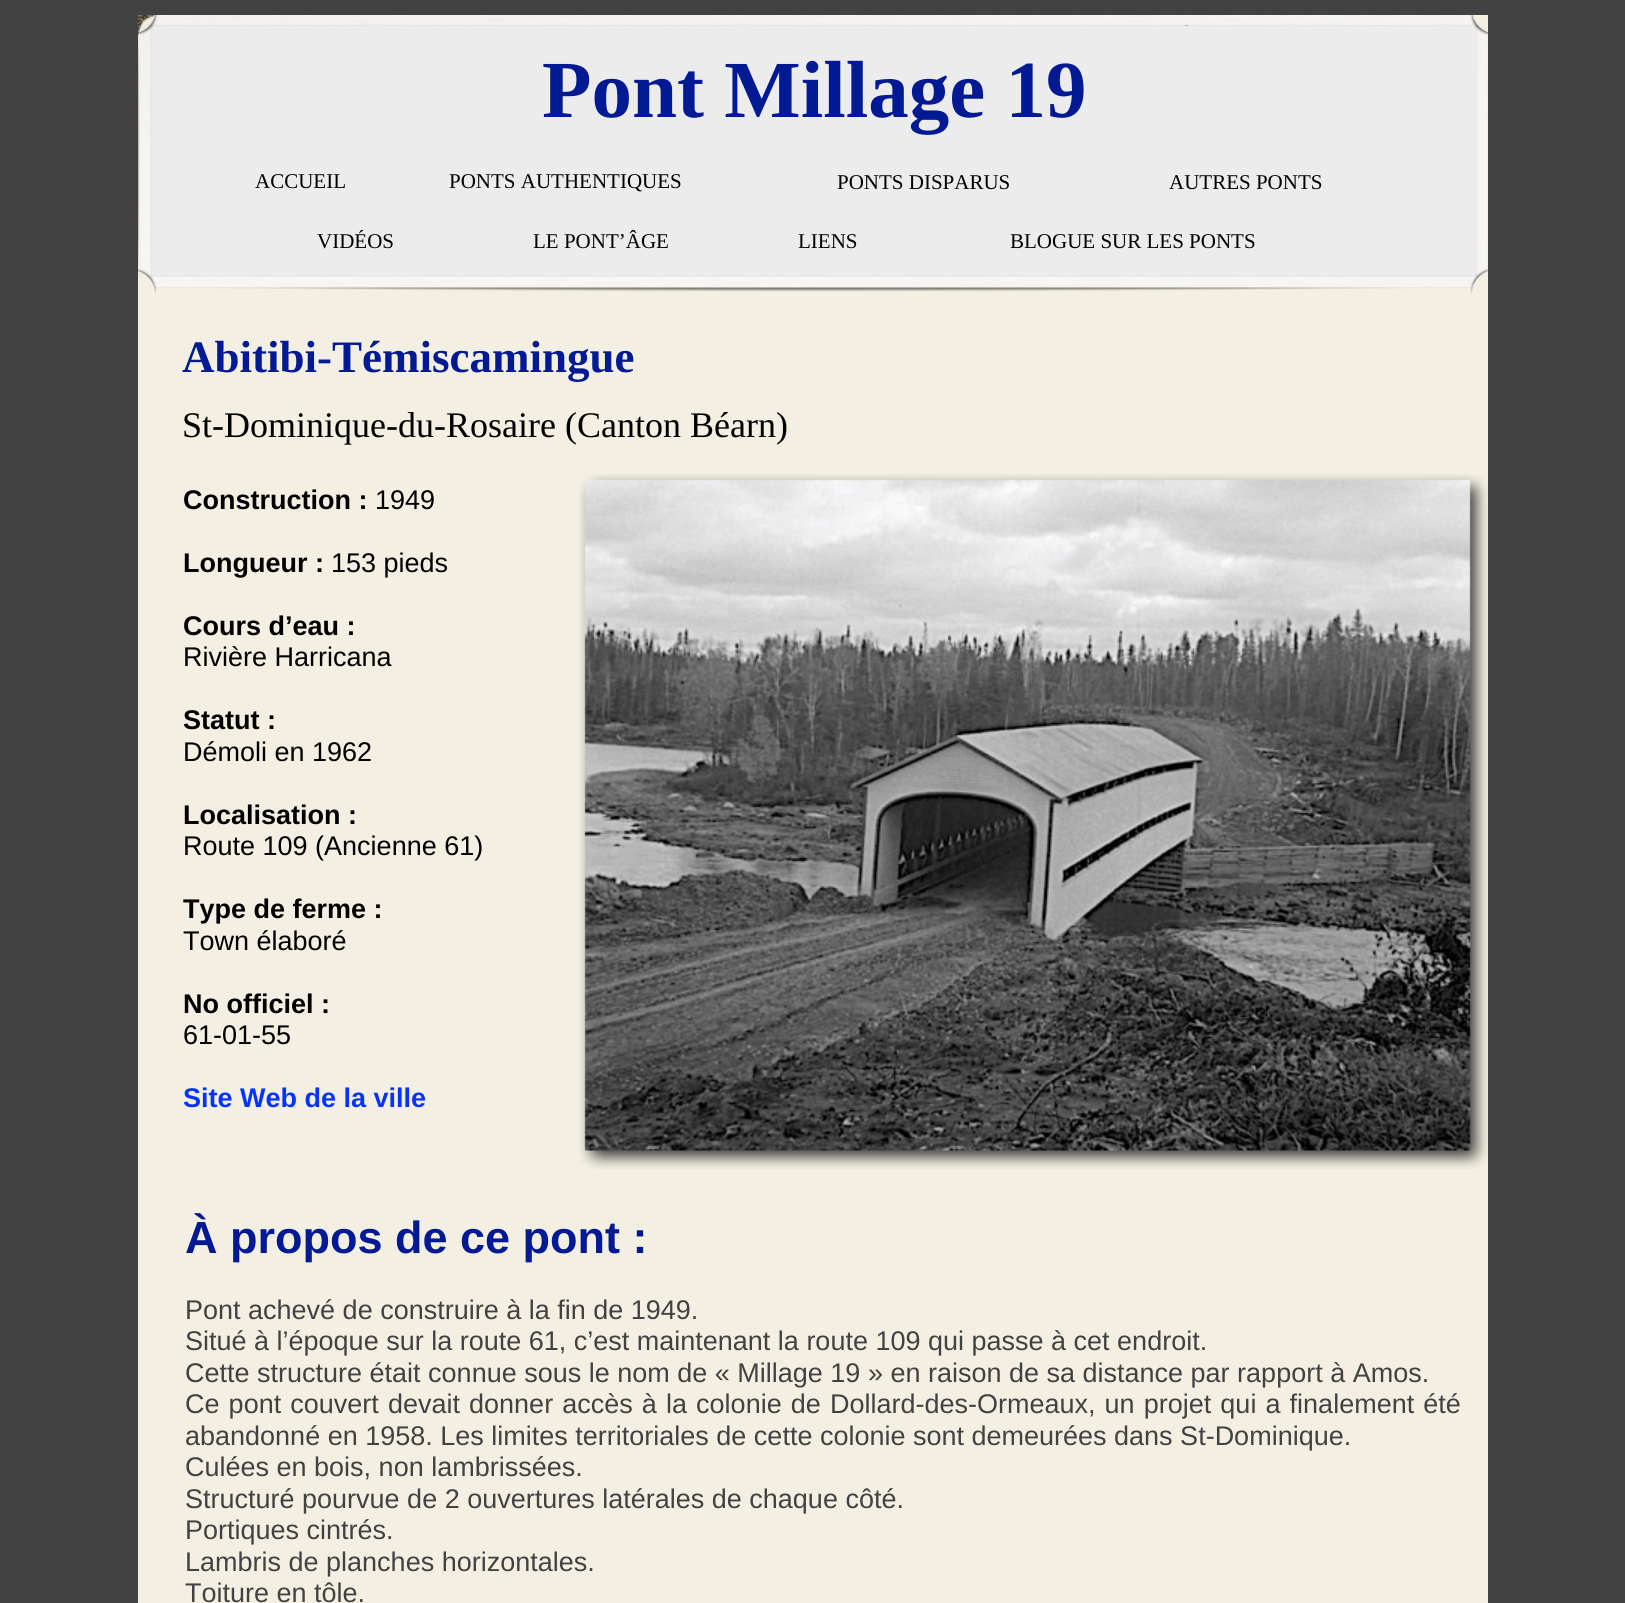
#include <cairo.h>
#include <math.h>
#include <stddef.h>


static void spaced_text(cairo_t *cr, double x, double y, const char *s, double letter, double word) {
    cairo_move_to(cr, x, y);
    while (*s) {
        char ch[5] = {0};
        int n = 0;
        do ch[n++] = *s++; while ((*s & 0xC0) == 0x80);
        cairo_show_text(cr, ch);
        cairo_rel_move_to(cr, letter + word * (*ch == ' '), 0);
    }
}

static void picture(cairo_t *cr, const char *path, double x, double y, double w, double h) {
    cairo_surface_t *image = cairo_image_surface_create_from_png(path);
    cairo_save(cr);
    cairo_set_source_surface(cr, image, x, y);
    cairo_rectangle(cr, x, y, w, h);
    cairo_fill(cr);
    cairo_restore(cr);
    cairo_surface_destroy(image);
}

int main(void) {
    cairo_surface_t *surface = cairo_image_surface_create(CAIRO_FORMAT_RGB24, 1625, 1603);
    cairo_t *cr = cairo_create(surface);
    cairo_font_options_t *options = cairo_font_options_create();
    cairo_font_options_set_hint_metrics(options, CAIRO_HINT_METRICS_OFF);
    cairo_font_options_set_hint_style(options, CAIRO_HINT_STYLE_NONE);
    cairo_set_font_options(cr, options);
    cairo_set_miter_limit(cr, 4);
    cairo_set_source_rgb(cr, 0.259, 0.259, 0.259);
    cairo_paint(cr);
    cairo_set_source_rgb(cr, 0.953, 0.941, 0.89);
    cairo_rectangle(cr, 138, 15, 1350, 1588);
    cairo_fill(cr);
    picture(cr, "img1.png", 138, 103, 11, 175);
    picture(cr, "img2.png", 138, 15, 1050, 88);
    cairo_set_source_rgb(cr, 0.922, 0.922, 0.922);
    cairo_rectangle(cr, 149, 26, 1330, 252);
    cairo_fill(cr);
    picture(cr, "img3.png", 138, 15, 21, 21);
    picture(cr, "img5.png", 1468, 15, 20, 21);
    picture(cr, "img4.png", 159, 15, 1310, 11);
    picture(cr, "img6.png", 138, 36, 14, 231);
    picture(cr, "img7.png", 1477, 36, 11, 231);
    picture(cr, "img8.png", 138, 267, 21, 29);
    picture(cr, "img10.png", 1468, 267, 20, 29);
    picture(cr, "img9.png", 159, 276, 1310, 16);
    cairo_select_font_face(cr, "Liberation Serif", CAIRO_FONT_SLANT_NORMAL, CAIRO_FONT_WEIGHT_BOLD);
    cairo_set_font_size(cr, 81);
    cairo_set_source_rgb(cr, 0.004, 0.098, 0.576);
    cairo_move_to(cr, 542, 117);
    cairo_show_text(cr, "Pont Millage 19");
    cairo_select_font_face(cr, "Liberation Serif", CAIRO_FONT_SLANT_NORMAL, CAIRO_FONT_WEIGHT_NORMAL);
    cairo_set_font_size(cr, 21);
    cairo_set_source_rgb(cr, 0, 0, 0);
    cairo_move_to(cr, 255, 188);
    cairo_show_text(cr, "ACCUEIL");
    cairo_move_to(cr, 449, 188);
    cairo_show_text(cr, "PONTS AUTHENTIQUES");
    cairo_move_to(cr, 837, 189);
    cairo_show_text(cr, "PONTS DISPARUS");
    cairo_move_to(cr, 1169, 189);
    cairo_show_text(cr, "AUTRES PONTS");
    cairo_move_to(cr, 317, 248);
    cairo_show_text(cr, "VIDÉOS");
    cairo_move_to(cr, 533, 248);
    cairo_show_text(cr, "LE PONT’ÂGE");
    cairo_move_to(cr, 798, 248);
    cairo_show_text(cr, "LIENS");
    cairo_move_to(cr, 1010, 248);
    cairo_show_text(cr, "BLOGUE SUR LES PONTS");
    cairo_select_font_face(cr, "Liberation Serif", CAIRO_FONT_SLANT_NORMAL, CAIRO_FONT_WEIGHT_BOLD);
    cairo_set_font_size(cr, 45);
    cairo_set_source_rgb(cr, 0.004, 0.098, 0.576);
    cairo_move_to(cr, 182, 372);
    cairo_show_text(cr, "Abitibi-Témiscamingue");
    cairo_select_font_face(cr, "Liberation Serif", CAIRO_FONT_SLANT_NORMAL, CAIRO_FONT_WEIGHT_NORMAL);
    cairo_set_font_size(cr, 36);
    cairo_set_source_rgb(cr, 0, 0, 0);
    cairo_move_to(cr, 182, 437);
    cairo_show_text(cr, "St-Dominique-du-Rosaire (Canton Béarn)");
    cairo_select_font_face(cr, "Liberation Sans", CAIRO_FONT_SLANT_NORMAL, CAIRO_FONT_WEIGHT_BOLD);
    cairo_set_font_size(cr, 27);
    cairo_move_to(cr, 183, 509);
    cairo_show_text(cr, "Construction :");
    cairo_select_font_face(cr, "Liberation Sans", CAIRO_FONT_SLANT_NORMAL, CAIRO_FONT_WEIGHT_NORMAL);
    cairo_move_to(cr, 375, 509);
    cairo_show_text(cr, "1949");
    cairo_select_font_face(cr, "Liberation Sans", CAIRO_FONT_SLANT_NORMAL, CAIRO_FONT_WEIGHT_BOLD);
    cairo_move_to(cr, 183, 572);
    cairo_show_text(cr, "Longueur :");
    cairo_select_font_face(cr, "Liberation Sans", CAIRO_FONT_SLANT_NORMAL, CAIRO_FONT_WEIGHT_NORMAL);
    cairo_move_to(cr, 331, 572);
    cairo_show_text(cr, "153 pieds");
    cairo_select_font_face(cr, "Liberation Sans", CAIRO_FONT_SLANT_NORMAL, CAIRO_FONT_WEIGHT_BOLD);
    cairo_move_to(cr, 183, 635);
    cairo_show_text(cr, "Cours d’eau :");
    cairo_select_font_face(cr, "Liberation Sans", CAIRO_FONT_SLANT_NORMAL, CAIRO_FONT_WEIGHT_NORMAL);
    cairo_move_to(cr, 183, 666);
    cairo_show_text(cr, "Rivière Harricana");
    cairo_select_font_face(cr, "Liberation Sans", CAIRO_FONT_SLANT_NORMAL, CAIRO_FONT_WEIGHT_BOLD);
    cairo_move_to(cr, 183, 729);
    cairo_show_text(cr, "Statut :");
    cairo_select_font_face(cr, "Liberation Sans", CAIRO_FONT_SLANT_NORMAL, CAIRO_FONT_WEIGHT_NORMAL);
    cairo_move_to(cr, 183, 761);
    cairo_show_text(cr, "Démoli en 1962");
    cairo_select_font_face(cr, "Liberation Sans", CAIRO_FONT_SLANT_NORMAL, CAIRO_FONT_WEIGHT_BOLD);
    cairo_move_to(cr, 183, 824);
    cairo_show_text(cr, "Localisation :");
    cairo_select_font_face(cr, "Liberation Sans", CAIRO_FONT_SLANT_NORMAL, CAIRO_FONT_WEIGHT_NORMAL);
    cairo_move_to(cr, 183, 855);
    cairo_show_text(cr, "Route 109 (Ancienne 61)");
    cairo_select_font_face(cr, "Liberation Sans", CAIRO_FONT_SLANT_NORMAL, CAIRO_FONT_WEIGHT_BOLD);
    cairo_move_to(cr, 183, 918);
    cairo_show_text(cr, "Type de ferme :");
    cairo_select_font_face(cr, "Liberation Sans", CAIRO_FONT_SLANT_NORMAL, CAIRO_FONT_WEIGHT_NORMAL);
    cairo_move_to(cr, 183, 950);
    cairo_show_text(cr, "Town élaboré");
    cairo_select_font_face(cr, "Liberation Sans", CAIRO_FONT_SLANT_NORMAL, CAIRO_FONT_WEIGHT_BOLD);
    cairo_move_to(cr, 183, 1013);
    cairo_show_text(cr, "No officiel :");
    cairo_select_font_face(cr, "Liberation Sans", CAIRO_FONT_SLANT_NORMAL, CAIRO_FONT_WEIGHT_NORMAL);
    cairo_move_to(cr, 183, 1044);
    cairo_show_text(cr, "61-01-55");
    cairo_select_font_face(cr, "Liberation Sans", CAIRO_FONT_SLANT_NORMAL, CAIRO_FONT_WEIGHT_BOLD);
    cairo_set_source_rgb(cr, 0.016, 0.2, 1);
    cairo_move_to(cr, 183, 1107);
    cairo_show_text(cr, "Site Web de la ville");
    picture(cr, "img11.png", 579, 474, 909, 695);
    cairo_set_font_size(cr, 45);
    cairo_set_source_rgb(cr, 0.004, 0.098, 0.576);
    cairo_move_to(cr, 185, 1253);
    cairo_show_text(cr, "À propos de ce pont :");
    cairo_select_font_face(cr, "Liberation Sans", CAIRO_FONT_SLANT_NORMAL, CAIRO_FONT_WEIGHT_NORMAL);
    cairo_set_font_size(cr, 27);
    cairo_set_source_rgb(cr, 0.259, 0.259, 0.259);
    cairo_move_to(cr, 185, 1319);
    cairo_show_text(cr, "Pont achevé de construire à la fin de 1949.");
    cairo_move_to(cr, 185, 1350);
    cairo_show_text(cr, "Situé à l’époque sur la route 61, c’est maintenant la route 109 qui passe à cet endroit.");
    cairo_move_to(cr, 185, 1382);
    cairo_show_text(cr, "Cette structure était connue sous le nom de « Millage 19 » en raison de sa distance par rapport à Amos.");
    spaced_text(cr, 185, 1413, "Ce pont couvert devait donner accès à la colonie de Dollard-des-Ormeaux, un projet qui a finalement été", 0, 1.6);
    cairo_move_to(cr, 185, 1445);
    cairo_show_text(cr, "abandonné en 1958. Les limites territoriales de cette colonie sont demeurées dans St-Dominique.");
    cairo_move_to(cr, 185, 1476);
    cairo_show_text(cr, "Culées en bois, non lambrissées.");
    cairo_move_to(cr, 185, 1508);
    cairo_show_text(cr, "Structuré pourvue de 2 ouvertures latérales de chaque côté.");
    cairo_move_to(cr, 185, 1539);
    cairo_show_text(cr, "Portiques cintrés.");
    cairo_move_to(cr, 185, 1571);
    cairo_show_text(cr, "Lambris de planches horizontales.");
    cairo_move_to(cr, 185, 1602);
    cairo_show_text(cr, "Toiture en tôle.");
    cairo_surface_write_to_png(surface, "page.png");
    cairo_font_options_destroy(options);
    cairo_destroy(cr);
    cairo_surface_destroy(surface);
    return 0;
}
